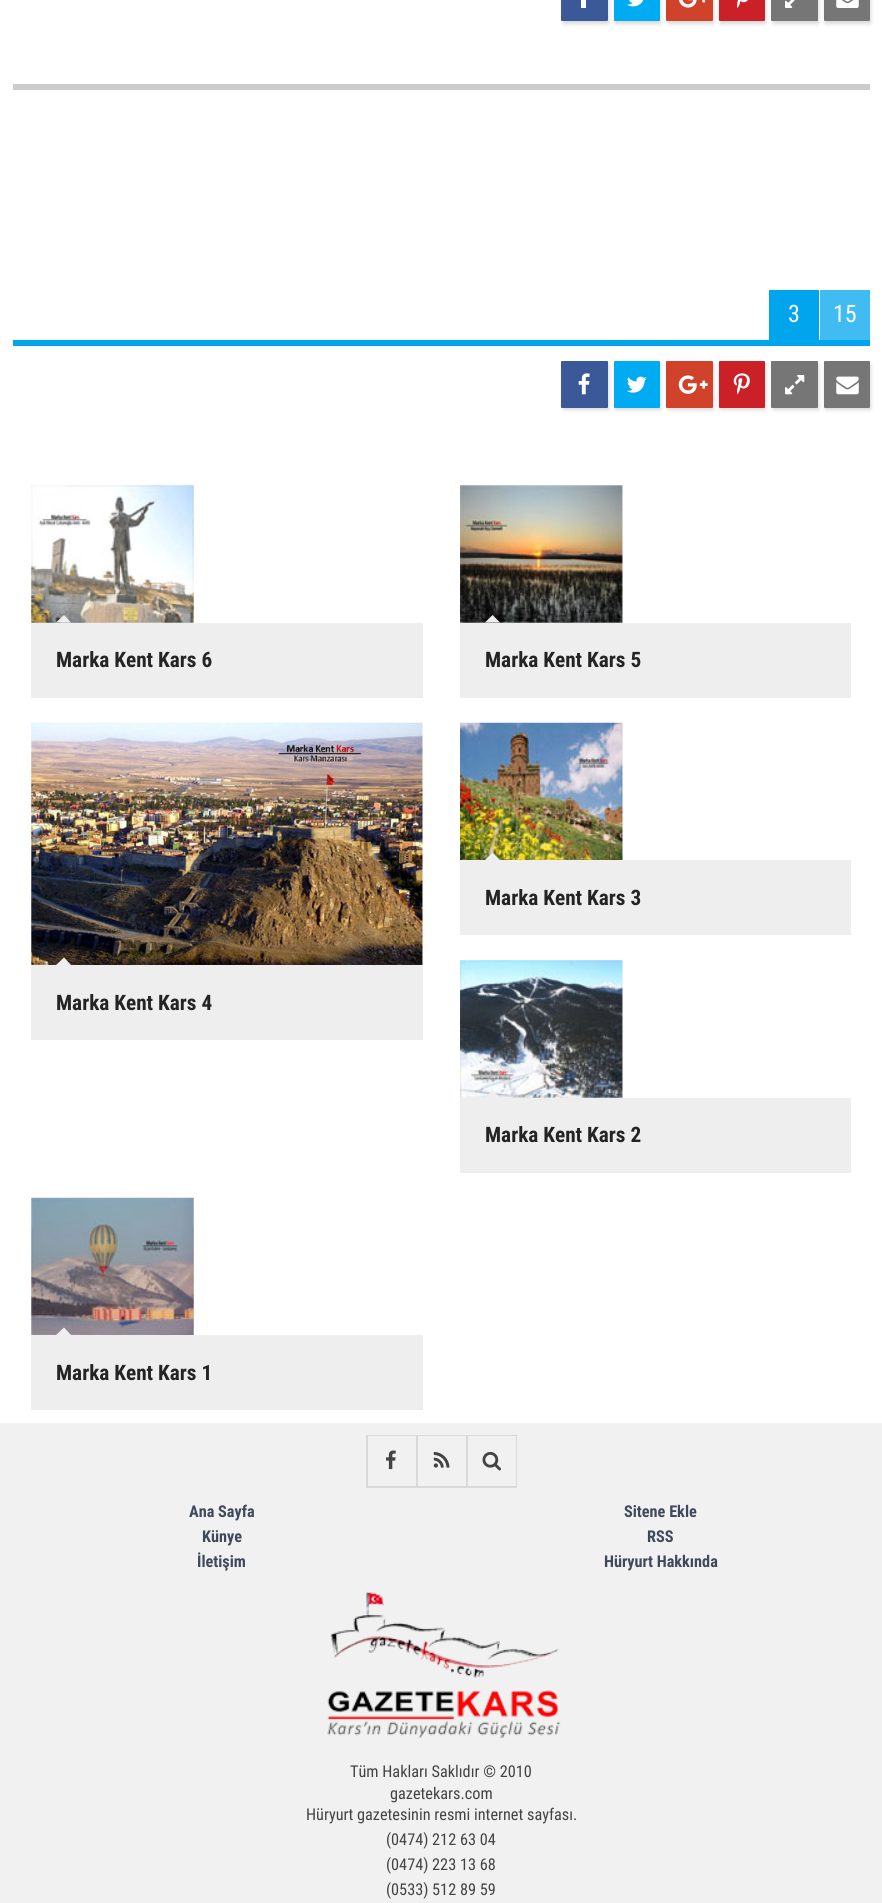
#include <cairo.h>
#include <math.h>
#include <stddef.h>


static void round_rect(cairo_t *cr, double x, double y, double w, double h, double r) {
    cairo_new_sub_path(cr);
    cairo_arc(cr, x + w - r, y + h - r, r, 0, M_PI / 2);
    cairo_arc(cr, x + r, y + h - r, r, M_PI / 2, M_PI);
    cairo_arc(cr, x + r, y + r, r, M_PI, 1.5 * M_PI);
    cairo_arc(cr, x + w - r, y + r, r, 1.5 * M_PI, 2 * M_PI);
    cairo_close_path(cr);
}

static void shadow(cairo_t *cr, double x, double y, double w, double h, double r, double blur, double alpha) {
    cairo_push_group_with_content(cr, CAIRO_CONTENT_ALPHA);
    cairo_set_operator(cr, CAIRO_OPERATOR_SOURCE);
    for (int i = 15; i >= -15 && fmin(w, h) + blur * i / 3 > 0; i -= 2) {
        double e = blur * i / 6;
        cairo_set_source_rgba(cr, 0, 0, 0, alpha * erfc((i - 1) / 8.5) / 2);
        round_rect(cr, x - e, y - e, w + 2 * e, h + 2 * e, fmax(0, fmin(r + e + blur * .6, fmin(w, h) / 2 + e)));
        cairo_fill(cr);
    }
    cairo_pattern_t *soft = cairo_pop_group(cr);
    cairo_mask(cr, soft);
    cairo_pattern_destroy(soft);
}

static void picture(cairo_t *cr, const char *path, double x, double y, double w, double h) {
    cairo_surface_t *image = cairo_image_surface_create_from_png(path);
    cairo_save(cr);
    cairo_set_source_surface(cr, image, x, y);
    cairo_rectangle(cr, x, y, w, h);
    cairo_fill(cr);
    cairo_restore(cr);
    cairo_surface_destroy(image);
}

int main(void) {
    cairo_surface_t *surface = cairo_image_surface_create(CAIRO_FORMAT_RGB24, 882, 1903);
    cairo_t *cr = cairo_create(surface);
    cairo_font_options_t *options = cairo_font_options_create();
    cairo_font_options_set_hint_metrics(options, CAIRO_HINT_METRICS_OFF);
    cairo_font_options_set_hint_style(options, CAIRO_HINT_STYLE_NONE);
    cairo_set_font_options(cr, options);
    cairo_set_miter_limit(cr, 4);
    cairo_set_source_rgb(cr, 1, 1, 1);
    cairo_paint(cr);
    cairo_set_source_rgb(cr, 0.008, 0.012, 0.012);
    shadow(cr, 563, -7, 46, 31, 1, 2, 0.15);
    cairo_set_source_rgb(cr, 0.231, 0.349, 0.596);
    round_rect(cr, 561, -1, 47, 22, 1);
    cairo_fill(cr);
    cairo_set_source_rgb(cr, 1, 1, 1);
    cairo_rectangle(cr, 581, 0, 5, 8);
    cairo_fill(cr);
    cairo_set_source_rgb(cr, 0.008, 0.012, 0.012);
    shadow(cr, 615, -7, 46, 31, 1, 2, 0.15);
    cairo_set_source_rgb(cr, 0, 0.671, 0.945);
    round_rect(cr, 614, -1, 46, 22, 1);
    cairo_fill(cr);
    picture(cr, "img1.png", 627, 0, 17, 7);
    cairo_set_source_rgb(cr, 0.008, 0.012, 0.012);
    shadow(cr, 668, -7, 46, 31, 1, 2, 0.15);
    cairo_set_source_rgb(cr, 0.816, 0.259, 0.165);
    round_rect(cr, 666, -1, 47, 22, 1);
    cairo_fill(cr);
    picture(cr, "img2.png", 678, 0, 28, 8);
    cairo_set_source_rgb(cr, 0.008, 0.012, 0.012);
    shadow(cr, 720, -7, 46, 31, 1, 2, 0.15);
    cairo_set_source_rgb(cr, 0.796, 0.125, 0.153);
    round_rect(cr, 719, -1, 46, 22, 1);
    cairo_fill(cr);
    picture(cr, "img3.png", 737, 0, 11, 8);
    cairo_set_source_rgb(cr, 0.008, 0.012, 0.012);
    shadow(cr, 773, -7, 46, 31, 1, 2, 0.15);
    cairo_set_source_rgb(cr, 0.463, 0.463, 0.463);
    round_rect(cr, 771, -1, 47, 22, 1);
    cairo_fill(cr);
    picture(cr, "img4.png", 785, 0, 10, 8);
    cairo_set_source_rgb(cr, 0.008, 0.012, 0.012);
    shadow(cr, 825, -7, 46, 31, 1, 2, 0.15);
    cairo_set_source_rgb(cr, 0.463, 0.463, 0.463);
    round_rect(cr, 824, -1, 46, 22, 1);
    cairo_fill(cr);
    picture(cr, "img5.png", 836, 0, 23, 8);
    cairo_set_source_rgb(cr, 0.8, 0.8, 0.8);
    cairo_rectangle(cr, 13, 84, 857, 6);
    cairo_fill(cr);
    cairo_set_source_rgb(cr, 0, 0.647, 0.929);
    cairo_rectangle(cr, 13, 340, 857, 6);
    cairo_fill(cr);
    cairo_rectangle(cr, 769, 290, 50, 50);
    cairo_fill(cr);
    cairo_select_font_face(cr, "Roboto Condensed", CAIRO_FONT_SLANT_NORMAL, CAIRO_FONT_WEIGHT_NORMAL);
    cairo_set_font_size(cr, 24);
    cairo_set_source_rgb(cr, 1, 1, 1);
    cairo_move_to(cr, 788, 322);
    cairo_show_text(cr, "3");
    cairo_set_source_rgb(cr, 0.251, 0.737, 0.949);
    cairo_rectangle(cr, 820, 290, 50, 50);
    cairo_fill(cr);
    cairo_set_source_rgb(cr, 1, 1, 1);
    cairo_move_to(cr, 833, 322);
    cairo_show_text(cr, "15");
    cairo_set_source_rgb(cr, 0.008, 0.012, 0.012);
    shadow(cr, 563, 364, 46, 46, 1, 2, 0.15);
    cairo_set_source_rgb(cr, 0.231, 0.349, 0.596);
    round_rect(cr, 561, 361, 47, 47, 1);
    cairo_fill(cr);
    picture(cr, "img6.png", 578, 373, 12, 22);
    cairo_set_source_rgb(cr, 0.008, 0.012, 0.012);
    shadow(cr, 615, 364, 46, 46, 1, 2, 0.15);
    cairo_set_source_rgb(cr, 0, 0.671, 0.945);
    round_rect(cr, 614, 361, 46, 47, 1);
    cairo_fill(cr);
    picture(cr, "img7.png", 627, 376, 20, 17);
    cairo_set_source_rgb(cr, 0.008, 0.012, 0.012);
    shadow(cr, 668, 364, 46, 46, 1, 2, 0.15);
    cairo_set_source_rgb(cr, 0.816, 0.259, 0.165);
    round_rect(cr, 666, 361, 47, 47, 1);
    cairo_fill(cr);
    picture(cr, "img8.png", 678, 375, 30, 19);
    cairo_set_source_rgb(cr, 0.008, 0.012, 0.012);
    shadow(cr, 720, 364, 46, 46, 1, 2, 0.15);
    cairo_set_source_rgb(cr, 0.796, 0.125, 0.153);
    round_rect(cr, 719, 361, 46, 47, 1);
    cairo_fill(cr);
    picture(cr, "img9.png", 733, 373, 17, 22);
    cairo_set_source_rgb(cr, 0.008, 0.012, 0.012);
    shadow(cr, 773, 364, 46, 46, 1, 2, 0.15);
    cairo_set_source_rgb(cr, 0.463, 0.463, 0.463);
    round_rect(cr, 771, 361, 47, 47, 1);
    cairo_fill(cr);
    picture(cr, "img10.png", 785, 375, 20, 20);
    cairo_set_source_rgb(cr, 0.008, 0.012, 0.012);
    shadow(cr, 825, 364, 46, 46, 1, 2, 0.15);
    cairo_set_source_rgb(cr, 0.463, 0.463, 0.463);
    round_rect(cr, 824, 361, 46, 47, 1);
    cairo_fill(cr);
    picture(cr, "img11.png", 836, 376, 23, 19);
    picture(cr, "img12.png", 31, 485, 163, 138);
    cairo_set_source_rgb(cr, 0.933, 0.933, 0.933);
    cairo_rectangle(cr, 31, 623, 392, 75);
    cairo_fill(cr);
    cairo_new_path(cr);
    cairo_move_to(cr, 71, 622.5);
    cairo_line_to(cr, 56, 622.5);
    cairo_line_to(cr, 64, 615);
    cairo_close_path(cr);
    cairo_fill(cr);
    cairo_select_font_face(cr, "Roboto Condensed", CAIRO_FONT_SLANT_NORMAL, CAIRO_FONT_WEIGHT_BOLD);
    cairo_set_font_size(cr, 21.25);
    cairo_set_source_rgb(cr, 0.141, 0.141, 0.141);
    cairo_move_to(cr, 56, 667);
    cairo_show_text(cr, "Marka Kent Kars 6");
    picture(cr, "img13.png", 460, 485, 163, 138);
    cairo_set_source_rgb(cr, 0.933, 0.933, 0.933);
    cairo_rectangle(cr, 460, 623, 391, 75);
    cairo_fill(cr);
    cairo_new_path(cr);
    cairo_move_to(cr, 500, 622.5);
    cairo_line_to(cr, 485, 622.5);
    cairo_line_to(cr, 492.5, 615);
    cairo_close_path(cr);
    cairo_fill(cr);
    cairo_set_source_rgb(cr, 0.141, 0.141, 0.141);
    cairo_move_to(cr, 485, 667);
    cairo_show_text(cr, "Marka Kent Kars 5");
    picture(cr, "img14.png", 460, 722, 163, 138);
    cairo_set_source_rgb(cr, 0.933, 0.933, 0.933);
    cairo_rectangle(cr, 460, 860, 391, 75);
    cairo_fill(cr);
    cairo_new_path(cr);
    cairo_move_to(cr, 500, 860);
    cairo_line_to(cr, 485, 860);
    cairo_line_to(cr, 492.5, 852.5);
    cairo_close_path(cr);
    cairo_fill(cr);
    cairo_set_source_rgb(cr, 0.141, 0.141, 0.141);
    cairo_move_to(cr, 485, 905);
    cairo_show_text(cr, "Marka Kent Kars 3");
    picture(cr, "img15.png", 31, 722, 392, 243);
    cairo_set_source_rgb(cr, 0.933, 0.933, 0.933);
    cairo_rectangle(cr, 31, 965, 392, 75);
    cairo_fill(cr);
    cairo_new_path(cr);
    cairo_move_to(cr, 71, 965);
    cairo_line_to(cr, 56, 965);
    cairo_line_to(cr, 64, 957.5);
    cairo_close_path(cr);
    cairo_fill(cr);
    cairo_set_source_rgb(cr, 0.141, 0.141, 0.141);
    cairo_move_to(cr, 56, 1010);
    cairo_show_text(cr, "Marka Kent Kars 4");
    picture(cr, "img16.png", 460, 960, 163, 138);
    cairo_set_source_rgb(cr, 0.933, 0.933, 0.933);
    cairo_rectangle(cr, 460, 1098, 391, 75);
    cairo_fill(cr);
    cairo_new_path(cr);
    cairo_move_to(cr, 500, 1097.5);
    cairo_line_to(cr, 485, 1097.5);
    cairo_line_to(cr, 492.5, 1090);
    cairo_close_path(cr);
    cairo_fill(cr);
    cairo_set_source_rgb(cr, 0.141, 0.141, 0.141);
    cairo_move_to(cr, 485, 1142);
    cairo_show_text(cr, "Marka Kent Kars 2");
    picture(cr, "img17.png", 31, 1197, 163, 138);
    cairo_set_source_rgb(cr, 0.933, 0.933, 0.933);
    cairo_rectangle(cr, 31, 1335, 392, 75);
    cairo_fill(cr);
    cairo_new_path(cr);
    cairo_move_to(cr, 71, 1335);
    cairo_line_to(cr, 56, 1335);
    cairo_line_to(cr, 64, 1327.5);
    cairo_close_path(cr);
    cairo_fill(cr);
    cairo_set_source_rgb(cr, 0.141, 0.141, 0.141);
    cairo_move_to(cr, 56, 1380);
    cairo_show_text(cr, "Marka Kent Kars 1");
    cairo_set_source_rgb(cr, 0.945, 0.945, 0.945);
    cairo_rectangle(cr, 0, 1423, 882, 480);
    cairo_fill(cr);
    cairo_set_source_rgb(cr, 0.851, 0.851, 0.851);
    cairo_rectangle(cr, 516, 1435, 1, 53);
    cairo_fill(cr);
    cairo_new_path(cr);
    cairo_move_to(cr, 366, 1435);
    cairo_line_to(cr, 416, 1435);
    cairo_line_to(cr, 416, 1436);
    cairo_line_to(cr, 368, 1436);
    cairo_close_path(cr);
    cairo_move_to(cr, 416, 1488);
    cairo_line_to(cr, 366, 1488);
    cairo_line_to(cr, 368, 1486);
    cairo_line_to(cr, 416, 1486);
    cairo_close_path(cr);
    cairo_fill(cr);
    cairo_set_source_rgba(cr, 0, 0, 0, 0.1);
    cairo_new_path(cr);
    cairo_move_to(cr, 366, 1488);
    cairo_line_to(cr, 366, 1435);
    cairo_line_to(cr, 368, 1436);
    cairo_line_to(cr, 368, 1486);
    cairo_close_path(cr);
    cairo_fill(cr);
    picture(cr, "img18.png", 386, 1450, 10, 20);
    cairo_set_source_rgb(cr, 0.851, 0.851, 0.851);
    cairo_new_path(cr);
    cairo_move_to(cr, 416, 1435);
    cairo_line_to(cr, 466, 1435);
    cairo_line_to(cr, 466, 1436);
    cairo_line_to(cr, 418, 1436);
    cairo_close_path(cr);
    cairo_move_to(cr, 466, 1488);
    cairo_line_to(cr, 416, 1488);
    cairo_line_to(cr, 418, 1486);
    cairo_line_to(cr, 466, 1486);
    cairo_close_path(cr);
    cairo_fill(cr);
    cairo_set_source_rgba(cr, 0, 0, 0, 0.1);
    cairo_new_path(cr);
    cairo_move_to(cr, 416, 1488);
    cairo_line_to(cr, 416, 1435);
    cairo_line_to(cr, 418, 1436);
    cairo_line_to(cr, 418, 1486);
    cairo_close_path(cr);
    cairo_fill(cr);
    picture(cr, "img19.png", 433, 1451, 17, 17);
    cairo_set_source_rgb(cr, 0.851, 0.851, 0.851);
    cairo_new_path(cr);
    cairo_move_to(cr, 466, 1435);
    cairo_line_to(cr, 516, 1435);
    cairo_line_to(cr, 516, 1436);
    cairo_line_to(cr, 468, 1436);
    cairo_close_path(cr);
    cairo_move_to(cr, 516, 1488);
    cairo_line_to(cr, 466, 1488);
    cairo_line_to(cr, 468, 1486);
    cairo_line_to(cr, 516, 1486);
    cairo_close_path(cr);
    cairo_fill(cr);
    cairo_set_source_rgba(cr, 0, 0, 0, 0.1);
    cairo_new_path(cr);
    cairo_move_to(cr, 466, 1488);
    cairo_line_to(cr, 466, 1435);
    cairo_line_to(cr, 468, 1436);
    cairo_line_to(cr, 468, 1486);
    cairo_close_path(cr);
    cairo_fill(cr);
    picture(cr, "img20.png", 482, 1451, 19, 20);
    cairo_set_font_size(cr, 16.25);
    cairo_set_source_rgb(cr, 0.247, 0.286, 0.357);
    cairo_move_to(cr, 189, 1517);
    cairo_show_text(cr, "Ana Sayfa");
    cairo_move_to(cr, 624, 1517);
    cairo_show_text(cr, "Sitene Ekle");
    cairo_move_to(cr, 202, 1542);
    cairo_show_text(cr, "Künye");
    cairo_move_to(cr, 647, 1542);
    cairo_show_text(cr, "RSS");
    cairo_move_to(cr, 197, 1567);
    cairo_show_text(cr, "İletişim");
    cairo_move_to(cr, 604, 1567);
    cairo_show_text(cr, "Hüryurt Hakkında");
    picture(cr, "img21.png", 327, 1591, 234, 147);
    cairo_select_font_face(cr, "Roboto Condensed", CAIRO_FONT_SLANT_NORMAL, CAIRO_FONT_WEIGHT_NORMAL);
    cairo_set_source_rgb(cr, 0.263, 0.263, 0.263);
    cairo_move_to(cr, 350, 1777);
    cairo_show_text(cr, "Tüm Hakları Saklıdır © 2010");
    cairo_move_to(cr, 390, 1799);
    cairo_show_text(cr, "gazetekars.com");
    cairo_move_to(cr, 306, 1820);
    cairo_show_text(cr, "Hüryurt gazetesinin resmi internet sayfası.");
    cairo_move_to(cr, 386, 1845);
    cairo_show_text(cr, "(0474) 212 63 04");
    cairo_move_to(cr, 386, 1870);
    cairo_show_text(cr, "(0474) 223 13 68");
    cairo_move_to(cr, 386, 1895);
    cairo_show_text(cr, "(0533) 512 89 59");
    cairo_surface_write_to_png(surface, "page.png");
    cairo_font_options_destroy(options);
    cairo_destroy(cr);
    cairo_surface_destroy(surface);
    return 0;
}
